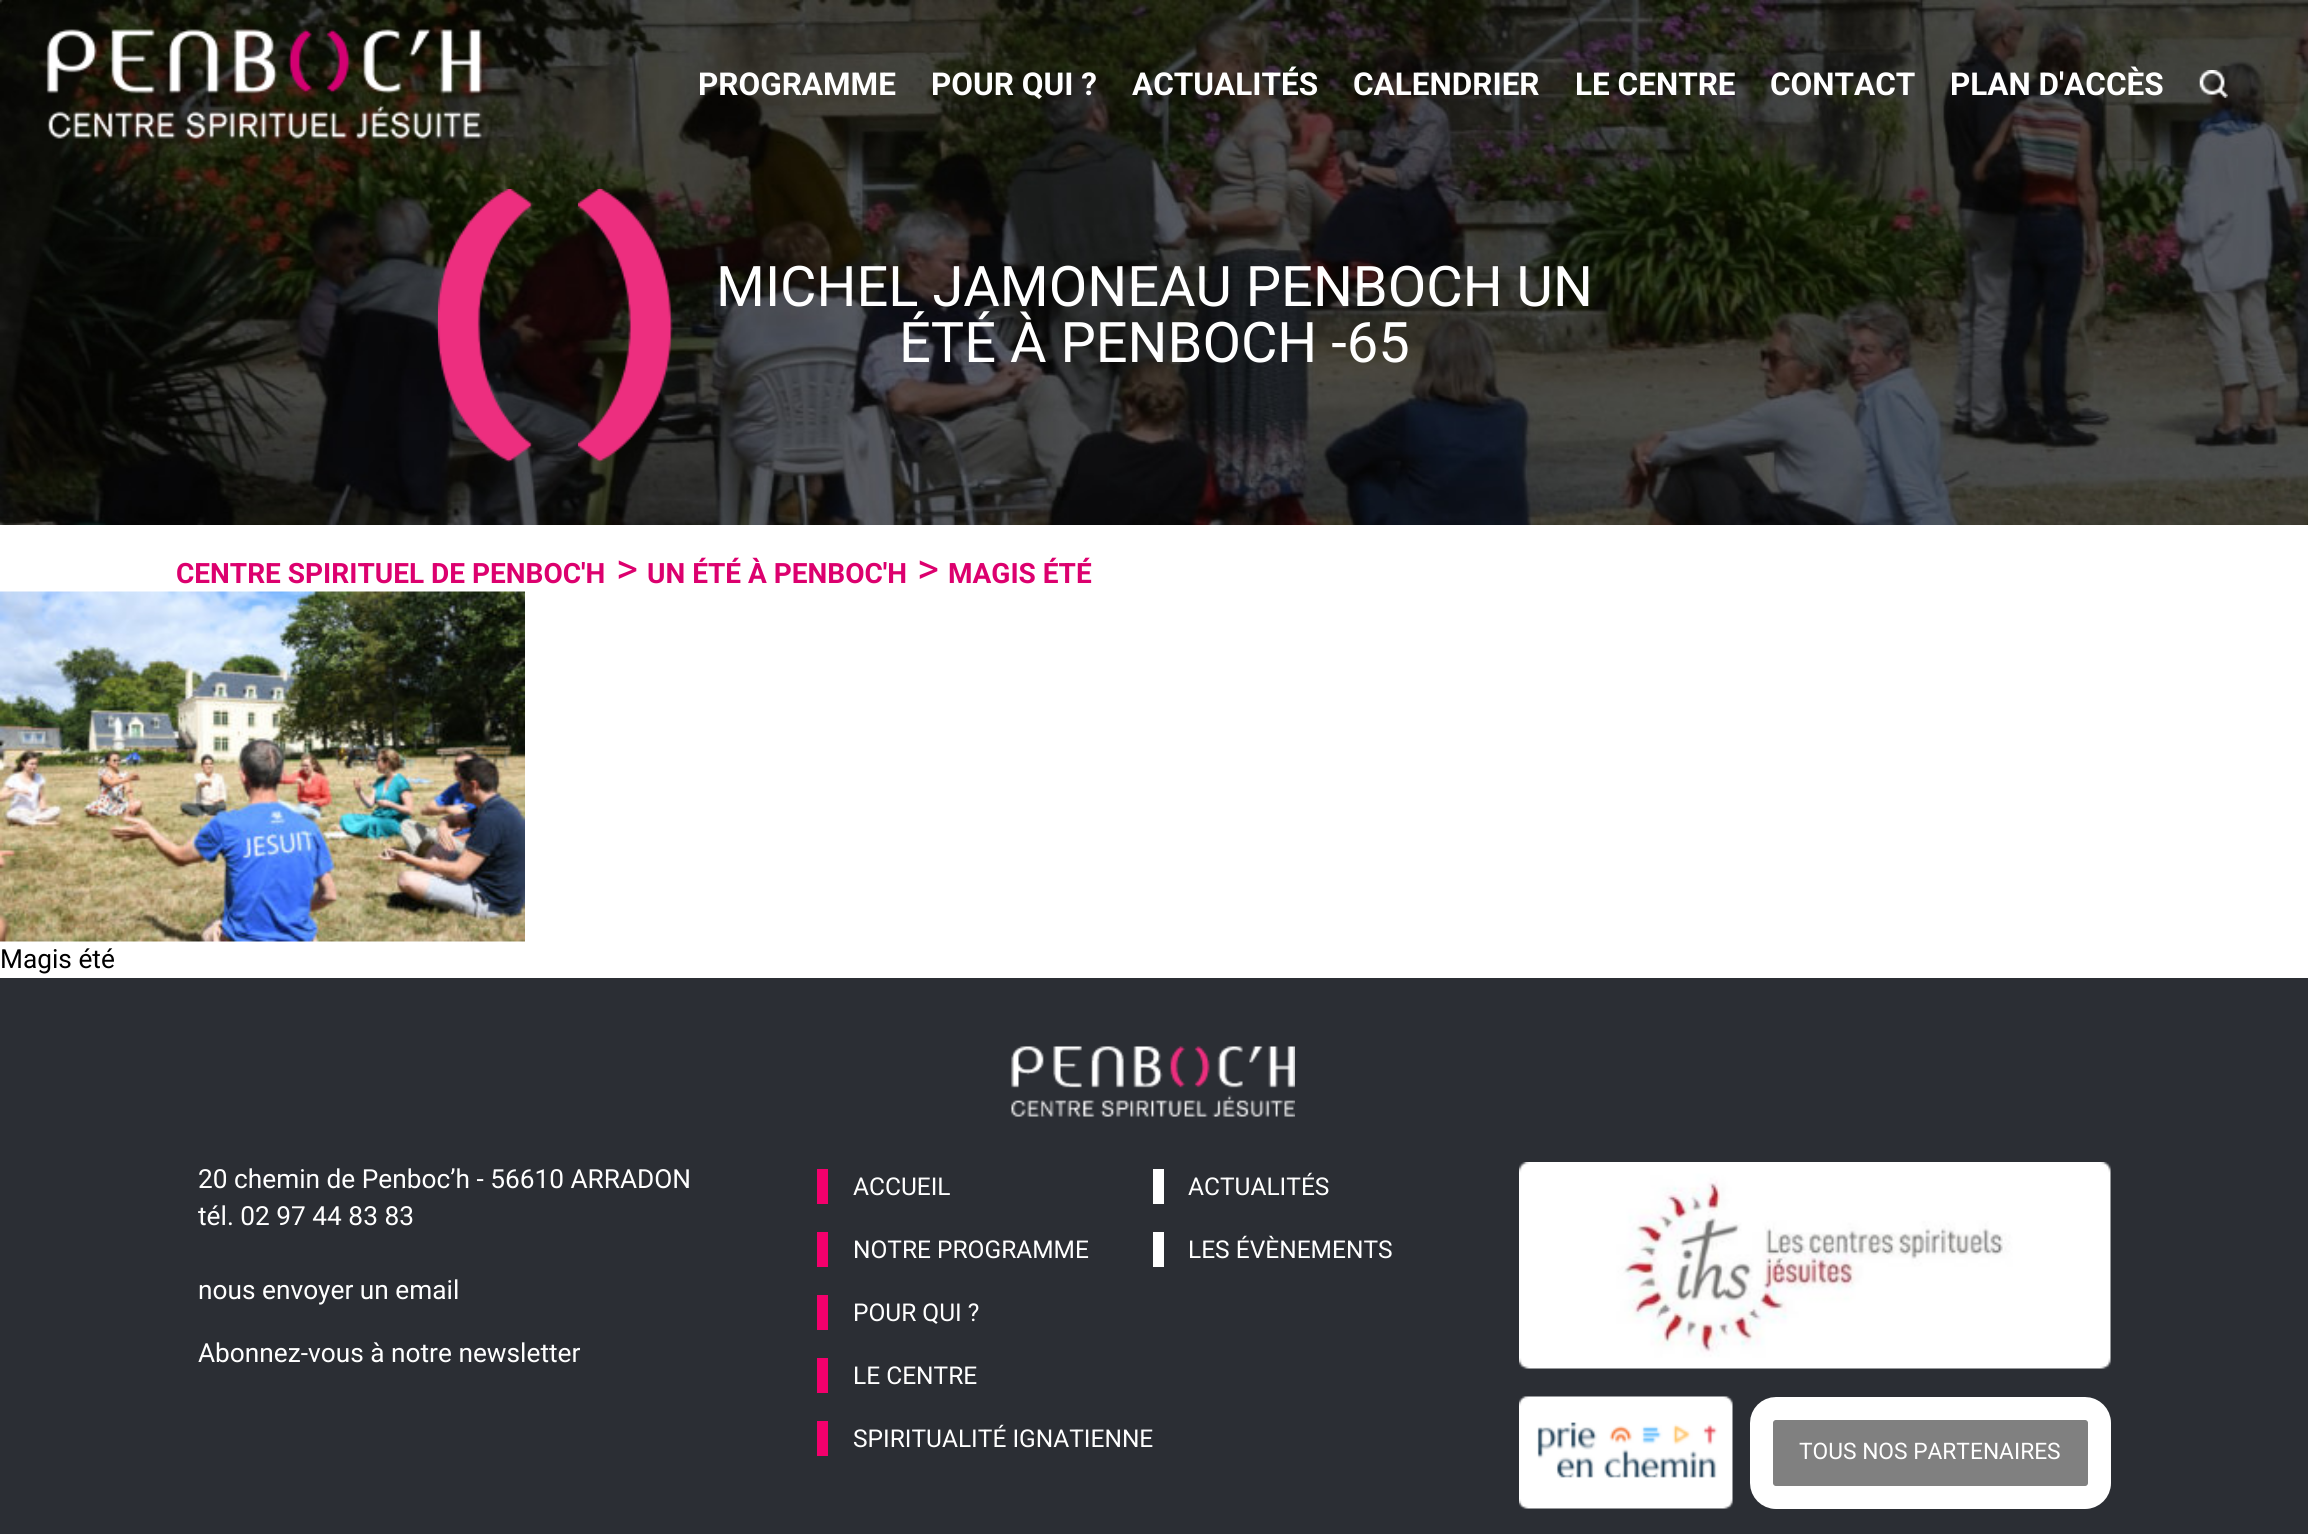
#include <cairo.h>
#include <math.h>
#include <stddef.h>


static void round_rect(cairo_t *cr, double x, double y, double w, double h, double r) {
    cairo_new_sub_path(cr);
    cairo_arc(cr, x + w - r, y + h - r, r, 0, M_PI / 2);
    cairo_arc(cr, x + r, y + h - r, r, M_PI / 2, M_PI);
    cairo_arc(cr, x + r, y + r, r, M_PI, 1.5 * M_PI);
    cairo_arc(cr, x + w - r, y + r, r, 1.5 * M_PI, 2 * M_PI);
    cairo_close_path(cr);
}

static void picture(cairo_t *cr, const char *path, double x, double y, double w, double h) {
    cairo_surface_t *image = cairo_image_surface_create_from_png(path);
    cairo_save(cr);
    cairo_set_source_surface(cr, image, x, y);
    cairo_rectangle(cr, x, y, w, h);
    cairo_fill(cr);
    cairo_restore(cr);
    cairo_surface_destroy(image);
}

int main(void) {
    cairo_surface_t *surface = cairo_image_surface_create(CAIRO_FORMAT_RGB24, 2308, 1534);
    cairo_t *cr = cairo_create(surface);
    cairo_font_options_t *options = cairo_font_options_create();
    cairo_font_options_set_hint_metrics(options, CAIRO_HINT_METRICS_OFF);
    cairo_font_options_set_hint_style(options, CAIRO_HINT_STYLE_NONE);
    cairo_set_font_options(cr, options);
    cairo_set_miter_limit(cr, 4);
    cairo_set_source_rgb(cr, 1, 1, 1);
    cairo_paint(cr);
    picture(cr, "img1.png", 0, 0, 2308, 525);
    picture(cr, "img2.png", 46, 29, 436, 110);
    cairo_select_font_face(cr, "Roboto", CAIRO_FONT_SLANT_NORMAL, CAIRO_FONT_WEIGHT_BOLD);
    cairo_set_font_size(cr, 31.5);
    cairo_set_source_rgb(cr, 1, 1, 1);
    cairo_move_to(cr, 698, 95);
    cairo_show_text(cr, "PROGRAMME");
    cairo_move_to(cr, 931, 95);
    cairo_show_text(cr, "POUR QUI ?");
    cairo_move_to(cr, 1132, 95);
    cairo_show_text(cr, "ACTUALITÉS");
    cairo_move_to(cr, 1353, 95);
    cairo_show_text(cr, "CALENDRIER");
    cairo_move_to(cr, 1575, 95);
    cairo_show_text(cr, "LE CENTRE");
    cairo_move_to(cr, 1770, 95);
    cairo_show_text(cr, "CONTACT");
    cairo_move_to(cr, 1950, 95);
    cairo_show_text(cr, "PLAN D'ACCÈS");
    picture(cr, "img3.png", 2199, 70, 29, 28);
    picture(cr, "img4.png", 437, 189, 96, 273);
    picture(cr, "img5.png", 577, 189, 96, 273);
    cairo_select_font_face(cr, "Roboto", CAIRO_FONT_SLANT_NORMAL, CAIRO_FONT_WEIGHT_NORMAL);
    cairo_set_font_size(cr, 56);
    cairo_move_to(cr, 716, 306);
    cairo_show_text(cr, "MICHEL JAMONEAU PENBOCH UN");
    cairo_move_to(cr, 899, 362);
    cairo_show_text(cr, "ÉTÉ À PENBOCH -65");
    cairo_select_font_face(cr, "Roboto", CAIRO_FONT_SLANT_NORMAL, CAIRO_FONT_WEIGHT_BOLD);
    cairo_set_font_size(cr, 28);
    cairo_set_source_rgb(cr, 0.863, 0, 0.431);
    cairo_move_to(cr, 176, 583);
    cairo_show_text(cr, "CENTRE SPIRITUEL DE PENBOC'H");
    cairo_select_font_face(cr, "Roboto", CAIRO_FONT_SLANT_NORMAL, CAIRO_FONT_WEIGHT_NORMAL);
    cairo_set_font_size(cr, 42);
    cairo_move_to(cr, 616, 583);
    cairo_show_text(cr, ">");
    cairo_select_font_face(cr, "Roboto", CAIRO_FONT_SLANT_NORMAL, CAIRO_FONT_WEIGHT_BOLD);
    cairo_set_font_size(cr, 28);
    cairo_move_to(cr, 647, 583);
    cairo_show_text(cr, "UN ÉTÉ À PENBOC'H");
    cairo_select_font_face(cr, "Roboto", CAIRO_FONT_SLANT_NORMAL, CAIRO_FONT_WEIGHT_NORMAL);
    cairo_set_font_size(cr, 42);
    cairo_move_to(cr, 917, 583);
    cairo_show_text(cr, ">");
    cairo_select_font_face(cr, "Roboto", CAIRO_FONT_SLANT_NORMAL, CAIRO_FONT_WEIGHT_BOLD);
    cairo_set_font_size(cr, 28);
    cairo_move_to(cr, 948, 583);
    cairo_show_text(cr, "MAGIS ÉTÉ");
    picture(cr, "img6.png", 0, 591, 525, 351);
    cairo_select_font_face(cr, "Roboto", CAIRO_FONT_SLANT_NORMAL, CAIRO_FONT_WEIGHT_NORMAL);
    cairo_set_font_size(cr, 26.25);
    cairo_set_source_rgb(cr, 0, 0, 0);
    cairo_move_to(cr, 0, 968);
    cairo_show_text(cr, "Magis été");
    cairo_set_source_rgb(cr, 0.169, 0.18, 0.204);
    cairo_rectangle(cr, 0, 978, 2308, 556);
    cairo_fill(cr);
    picture(cr, "img7.png", 1011, 1046, 284, 71);
    cairo_set_source_rgb(cr, 1, 1, 1);
    cairo_move_to(cr, 198, 1188);
    cairo_show_text(cr, "20 chemin de Penboc’h - 56610 ARRADON");
    cairo_move_to(cr, 198, 1225);
    cairo_show_text(cr, "tél. 02 97 44 83 83");
    cairo_move_to(cr, 198, 1299);
    cairo_show_text(cr, "nous envoyer un email");
    cairo_move_to(cr, 198, 1362);
    cairo_show_text(cr, "Abonnez-vous à notre newsletter");
    cairo_set_source_rgb(cr, 0.953, 0, 0.424);
    cairo_rectangle(cr, 817, 1169, 11, 35);
    cairo_fill(cr);
    cairo_set_font_size(cr, 24.5);
    cairo_set_source_rgb(cr, 1, 1, 1);
    cairo_move_to(cr, 853, 1195);
    cairo_show_text(cr, "ACCUEIL");
    cairo_set_source_rgb(cr, 0.953, 0, 0.424);
    cairo_rectangle(cr, 817, 1232, 11, 35);
    cairo_fill(cr);
    cairo_set_source_rgb(cr, 1, 1, 1);
    cairo_move_to(cr, 853, 1258);
    cairo_show_text(cr, "NOTRE PROGRAMME");
    cairo_set_source_rgb(cr, 0.953, 0, 0.424);
    cairo_rectangle(cr, 817, 1295, 11, 35);
    cairo_fill(cr);
    cairo_set_source_rgb(cr, 1, 1, 1);
    cairo_move_to(cr, 853, 1321);
    cairo_show_text(cr, "POUR QUI ?");
    cairo_set_source_rgb(cr, 0.953, 0, 0.424);
    cairo_rectangle(cr, 817, 1358, 11, 35);
    cairo_fill(cr);
    cairo_set_source_rgb(cr, 1, 1, 1);
    cairo_move_to(cr, 853, 1384);
    cairo_show_text(cr, "LE CENTRE");
    cairo_set_source_rgb(cr, 0.953, 0, 0.424);
    cairo_rectangle(cr, 817, 1421, 11, 35);
    cairo_fill(cr);
    cairo_set_source_rgb(cr, 1, 1, 1);
    cairo_move_to(cr, 853, 1447);
    cairo_show_text(cr, "SPIRITUALITÉ IGNATIENNE");
    cairo_rectangle(cr, 1153, 1169, 11, 35);
    cairo_fill(cr);
    cairo_move_to(cr, 1188, 1195);
    cairo_show_text(cr, "ACTUALITÉS");
    cairo_rectangle(cr, 1153, 1232, 11, 35);
    cairo_fill(cr);
    cairo_move_to(cr, 1188, 1258);
    cairo_show_text(cr, "LES ÉVÈNEMENTS");
    picture(cr, "img8.png", 1519, 1162, 592, 207);
    picture(cr, "img9.png", 1519, 1396, 214, 113);
    cairo_set_source_rgb(cr, 0.502, 0.502, 0.502);
    round_rect(cr, 1761.5, 1408.5, 338, 89, 14.5);
    cairo_fill_preserve(cr);
    cairo_set_source_rgb(cr, 1, 1, 1);
    cairo_set_line_width(cr, 23);
    cairo_stroke(cr);
    cairo_set_font_size(cr, 22.75);
    cairo_move_to(cr, 1799, 1459);
    cairo_show_text(cr, "TOUS NOS PARTENAIRES");
    cairo_surface_write_to_png(surface, "page.png");
    cairo_font_options_destroy(options);
    cairo_destroy(cr);
    cairo_surface_destroy(surface);
    return 0;
}
